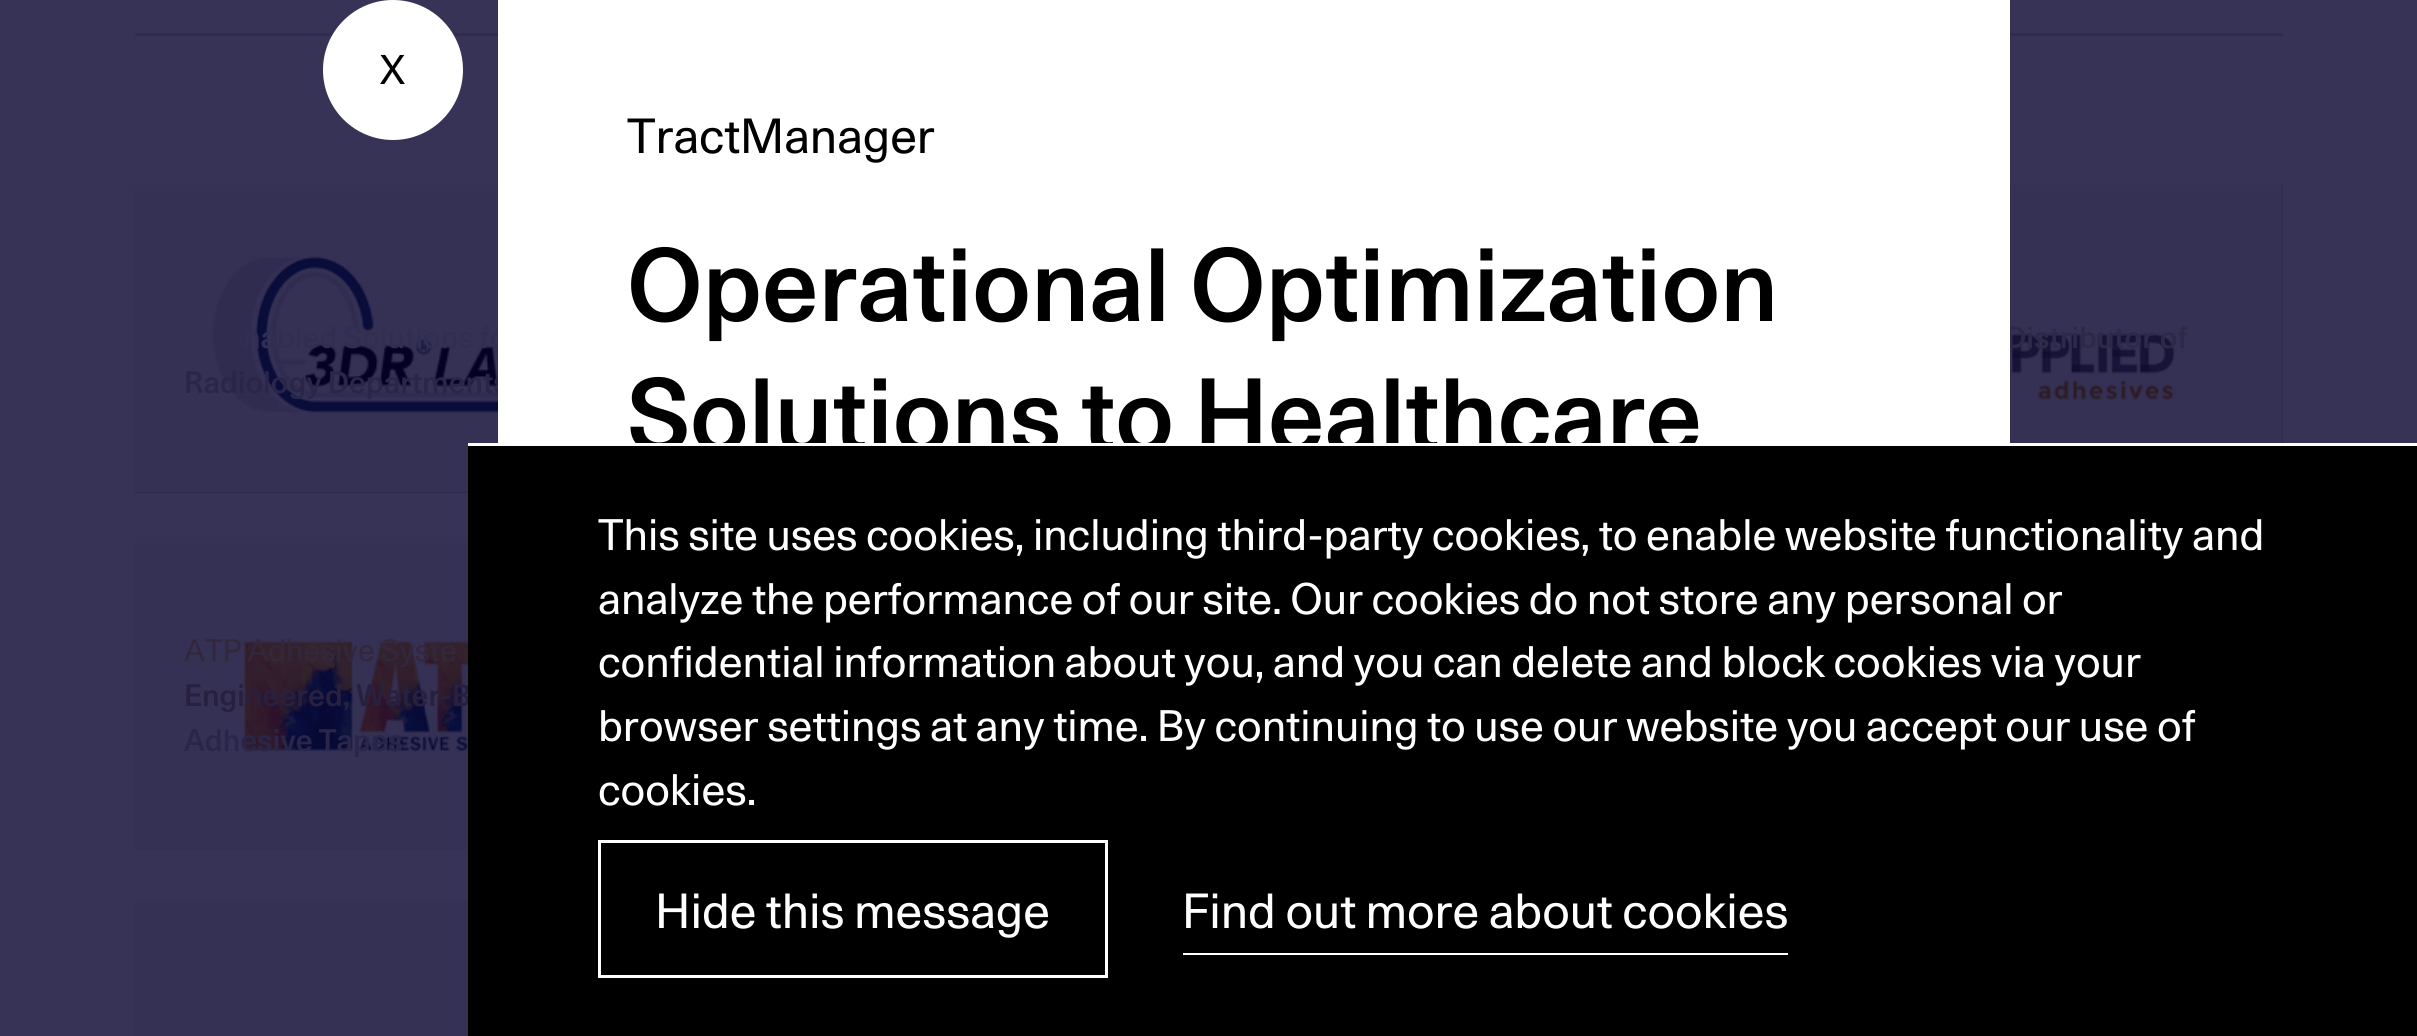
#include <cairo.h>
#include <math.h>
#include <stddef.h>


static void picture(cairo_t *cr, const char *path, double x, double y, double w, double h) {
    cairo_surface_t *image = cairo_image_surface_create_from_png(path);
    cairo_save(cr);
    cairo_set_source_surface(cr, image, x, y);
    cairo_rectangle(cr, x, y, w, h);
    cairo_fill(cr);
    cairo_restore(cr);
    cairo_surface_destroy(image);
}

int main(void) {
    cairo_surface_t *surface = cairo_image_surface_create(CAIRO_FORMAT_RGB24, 2417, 1036);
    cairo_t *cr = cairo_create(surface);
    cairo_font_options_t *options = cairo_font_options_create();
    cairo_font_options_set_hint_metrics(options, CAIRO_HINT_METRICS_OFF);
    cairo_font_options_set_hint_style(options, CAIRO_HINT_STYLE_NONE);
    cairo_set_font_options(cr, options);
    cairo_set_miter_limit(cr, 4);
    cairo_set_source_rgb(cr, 0.216, 0.2, 0.341);
    cairo_paint(cr);
    cairo_set_source_rgb(cr, 0.18, 0.165, 0.306);
    cairo_rectangle(cr, 135, 492, 333, 1);
    cairo_fill(cr);
    picture(cr, "img1.png", 135, 185, 363, 308);
    cairo_select_font_face(cr, "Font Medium", CAIRO_FONT_SLANT_NORMAL, CAIRO_FONT_WEIGHT_NORMAL);
    cairo_set_font_size(cr, 30);
    cairo_set_source_rgb(cr, 0.192, 0.18, 0.322);
    cairo_move_to(cr, 243, 348);
    cairo_show_text(cr, "nabled Solutions fo");
    cairo_set_source_rgb(cr, 0.161, 0.149, 0.29);
    cairo_move_to(cr, 184, 393);
    cairo_show_text(cr, "Radiology Departments");
    cairo_set_source_rgb(cr, 0.18, 0.165, 0.306);
    cairo_rectangle(cr, 2282, 185, 1, 258);
    cairo_fill(cr);
    picture(cr, "img2.png", 2010, 185, 273, 258);
    cairo_set_source_rgb(cr, 0.184, 0.161, 0.282);
    cairo_move_to(cr, 2005, 348);
    cairo_show_text(cr, "Distributor of");
    cairo_set_source_rgb(cr, 1, 1, 1);
    cairo_rectangle(cr, 498, 0, 1512, 443);
    cairo_fill(cr);
    cairo_set_source_rgb(cr, 0.188, 0.173, 0.314);
    cairo_rectangle(cr, 135, 33, 363, 3);
    cairo_fill(cr);
    cairo_set_source_rgb(cr, 1, 1, 1);
    cairo_arc(cr, 393, 70, 70, 0, 2 * M_PI);
    cairo_fill(cr);
    cairo_select_font_face(cr, "Font", CAIRO_FONT_SLANT_NORMAL, CAIRO_FONT_WEIGHT_NORMAL);
    cairo_set_font_size(cr, 40);
    cairo_set_source_rgb(cr, 0, 0, 0);
    cairo_move_to(cr, 380, 84);
    cairo_show_text(cr, "X");
    cairo_set_font_size(cr, 47.5);
    cairo_move_to(cr, 627, 153);
    cairo_show_text(cr, "TractManager");
    cairo_select_font_face(cr, "Font Medium", CAIRO_FONT_SLANT_NORMAL, CAIRO_FONT_WEIGHT_NORMAL);
    cairo_set_font_size(cr, 100);
    cairo_move_to(cr, 627, 321);
    cairo_show_text(cr, "Operational Optimization");
    cairo_move_to(cr, 627, 451);
    cairo_show_text(cr, "Solutions to Healthcare");
    cairo_set_source_rgb(cr, 0.188, 0.173, 0.314);
    cairo_rectangle(cr, 2010, 33, 273, 3);
    cairo_fill(cr);
    picture(cr, "img3.png", 135, 543, 333, 307);
    cairo_select_font_face(cr, "Font", CAIRO_FONT_SLANT_NORMAL, CAIRO_FONT_WEIGHT_NORMAL);
    cairo_set_font_size(cr, 30);
    cairo_set_source_rgb(cr, 0.2, 0.153, 0.231);
    cairo_move_to(cr, 184, 661);
    cairo_show_text(cr, "ATP Adhesive Syste");
    cairo_select_font_face(cr, "Font Medium", CAIRO_FONT_SLANT_NORMAL, CAIRO_FONT_WEIGHT_NORMAL);
    cairo_set_source_rgb(cr, 0.157, 0.125, 0.247);
    cairo_move_to(cr, 184, 706);
    cairo_show_text(cr, "Engineered, Water-B");
    cairo_set_source_rgb(cr, 0.161, 0.149, 0.29);
    cairo_move_to(cr, 184, 751);
    cairo_show_text(cr, "Adhesive Tapes");
    picture(cr, "img4.png", 135, 900, 333, 136);
    cairo_set_source_rgb(cr, 0, 0, 0);
    cairo_rectangle(cr, 468, 446, 1949, 590);
    cairo_fill(cr);
    cairo_set_source_rgb(cr, 1, 1, 1);
    cairo_rectangle(cr, 468, 443, 1949, 3);
    cairo_fill(cr);
    cairo_select_font_face(cr, "Font", CAIRO_FONT_SLANT_NORMAL, CAIRO_FONT_WEIGHT_NORMAL);
    cairo_set_font_size(cr, 42.5);
    cairo_move_to(cr, 598, 550);
    cairo_show_text(cr, "This site uses cookies, including third-party cookies, to enable website functionality and");
    cairo_move_to(cr, 598, 614);
    cairo_show_text(cr, "analyze the performance of our site. Our cookies do not store any personal or");
    cairo_move_to(cr, 598, 677);
    cairo_show_text(cr, "confidential information about you, and you can delete and block cookies via your");
    cairo_move_to(cr, 598, 741);
    cairo_show_text(cr, "browser settings at any time. By continuing to use our website you accept our use of");
    cairo_move_to(cr, 598, 805);
    cairo_show_text(cr, "cookies.");
    cairo_rectangle(cr, 599.5, 841.5, 507, 135);
    cairo_set_line_width(cr, 3);
    cairo_stroke(cr);
    cairo_set_font_size(cr, 47.5);
    cairo_move_to(cr, 655, 928);
    cairo_show_text(cr, "Hide this message");
    cairo_move_to(cr, 1182, 928);
    cairo_show_text(cr, "Find out more about cookies");
    cairo_rectangle(cr, 1183, 953, 605, 2);
    cairo_fill(cr);
    cairo_surface_write_to_png(surface, "page.png");
    cairo_font_options_destroy(options);
    cairo_destroy(cr);
    cairo_surface_destroy(surface);
    return 0;
}
